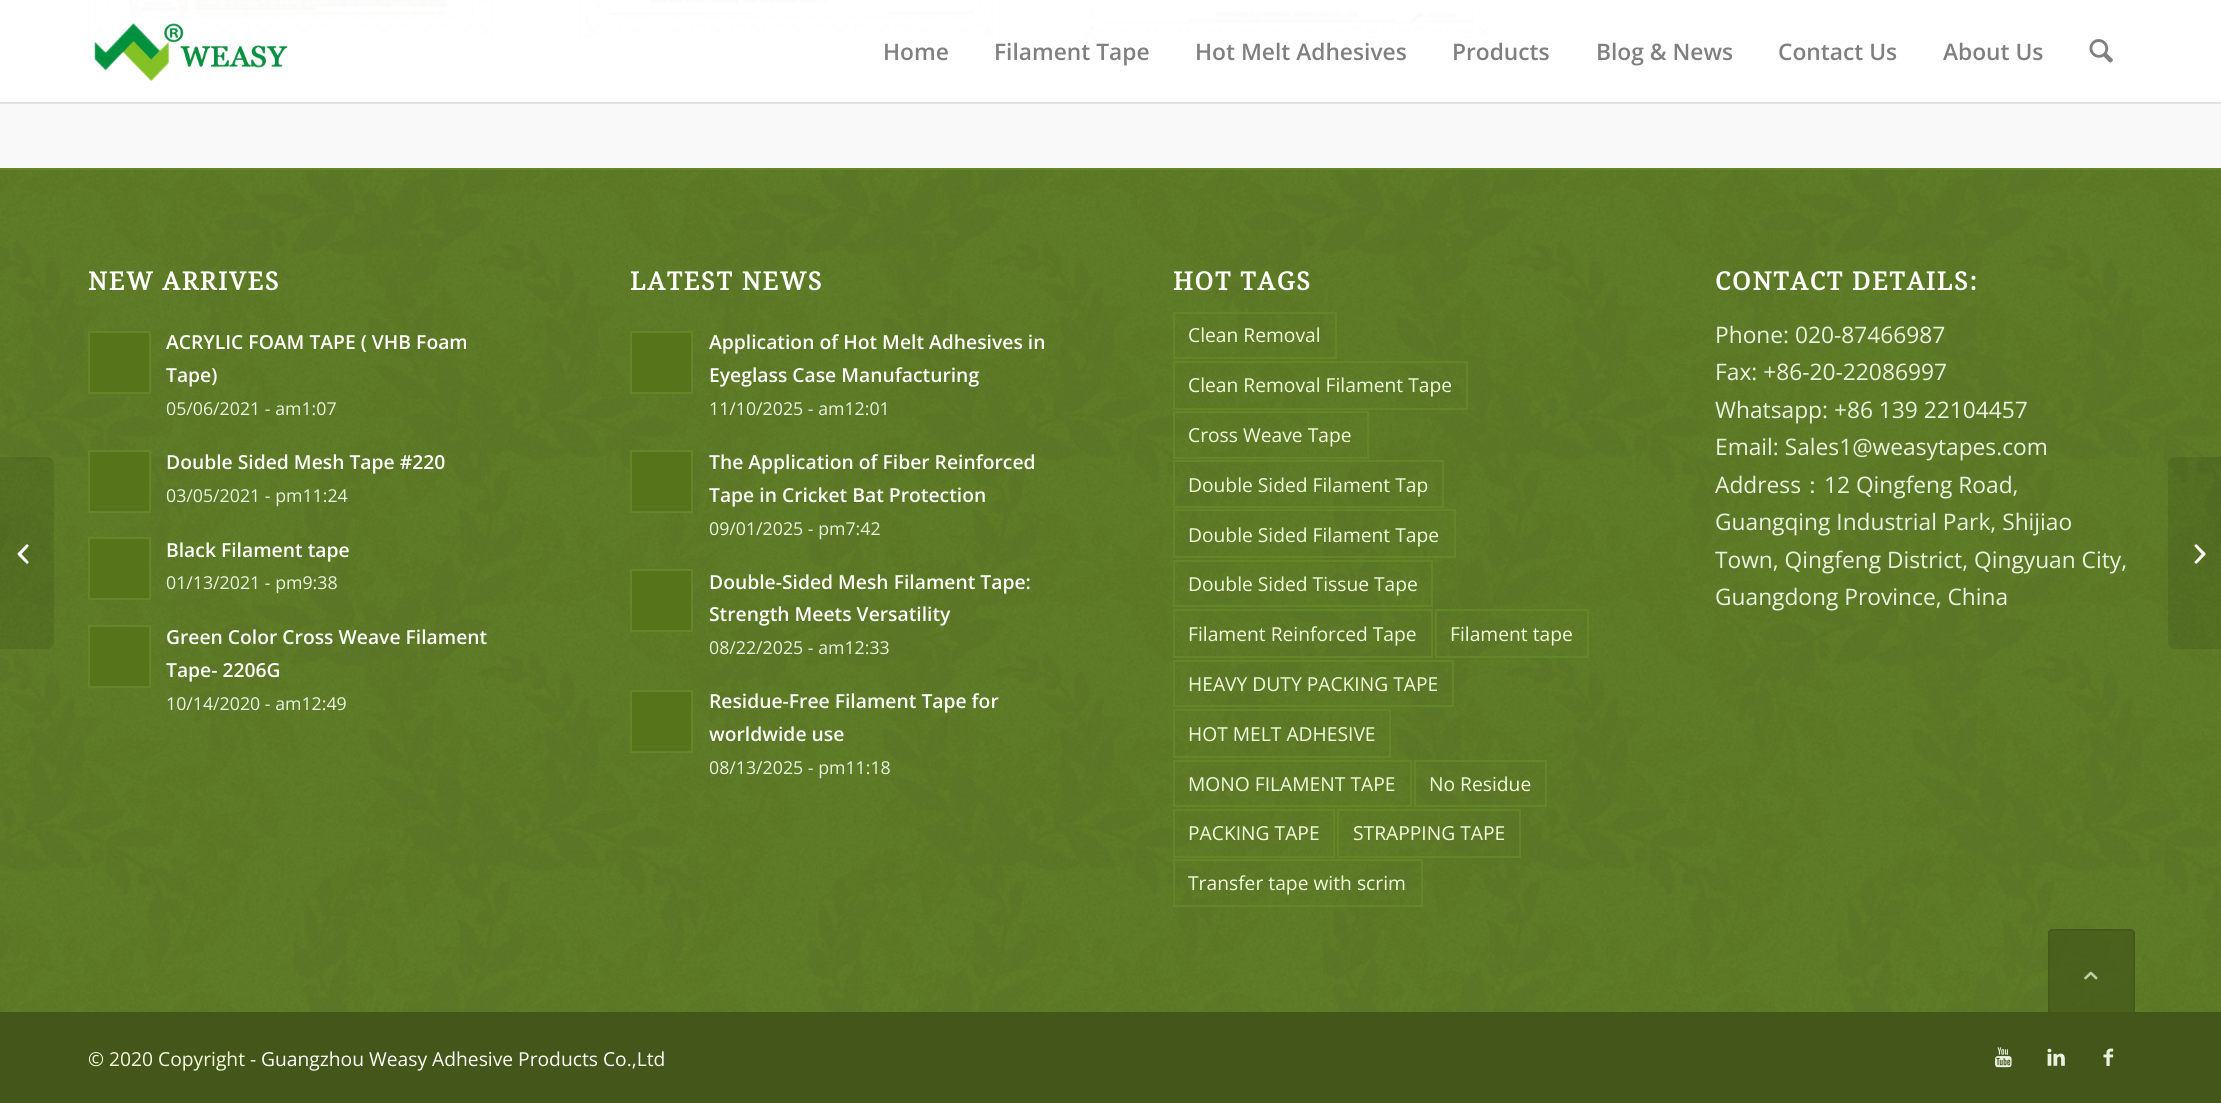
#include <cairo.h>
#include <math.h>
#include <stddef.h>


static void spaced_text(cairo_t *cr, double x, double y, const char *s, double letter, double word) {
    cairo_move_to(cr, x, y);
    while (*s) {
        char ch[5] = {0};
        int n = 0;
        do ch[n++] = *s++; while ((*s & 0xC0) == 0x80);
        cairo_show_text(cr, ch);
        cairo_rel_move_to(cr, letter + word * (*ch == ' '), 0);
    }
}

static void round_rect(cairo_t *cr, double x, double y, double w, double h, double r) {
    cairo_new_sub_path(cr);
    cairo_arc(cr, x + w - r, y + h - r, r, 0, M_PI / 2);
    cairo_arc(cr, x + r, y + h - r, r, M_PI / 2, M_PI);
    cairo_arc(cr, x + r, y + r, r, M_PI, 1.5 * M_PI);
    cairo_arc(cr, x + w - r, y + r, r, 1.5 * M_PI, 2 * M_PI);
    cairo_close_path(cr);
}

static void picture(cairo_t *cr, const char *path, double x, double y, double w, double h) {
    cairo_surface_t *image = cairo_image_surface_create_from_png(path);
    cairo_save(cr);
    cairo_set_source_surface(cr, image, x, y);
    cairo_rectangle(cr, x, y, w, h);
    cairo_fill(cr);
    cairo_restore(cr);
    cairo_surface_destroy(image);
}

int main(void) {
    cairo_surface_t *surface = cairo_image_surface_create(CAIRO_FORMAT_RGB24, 2221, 1103);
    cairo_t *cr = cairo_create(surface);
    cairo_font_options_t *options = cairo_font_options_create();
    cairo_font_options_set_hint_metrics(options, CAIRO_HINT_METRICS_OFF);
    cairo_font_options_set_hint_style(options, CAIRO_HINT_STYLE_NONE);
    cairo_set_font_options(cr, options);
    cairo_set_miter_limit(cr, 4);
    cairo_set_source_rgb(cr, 0.976, 0.976, 0.976);
    cairo_paint(cr);
    cairo_set_source_rgb(cr, 0.882, 0.882, 0.882);
    cairo_rectangle(cr, 0, 102, 2221, 2);
    cairo_fill(cr);
    cairo_set_source_rgb(cr, 1, 1, 1);
    cairo_rectangle(cr, 0, 0, 2221, 102);
    cairo_fill(cr);
    picture(cr, "img4.png", 87, 0, 1408, 44);
    picture(cr, "img1.png", 94, 23, 194, 59);
    cairo_select_font_face(cr, "Open Sans SemiBold", CAIRO_FONT_SLANT_NORMAL, CAIRO_FONT_WEIGHT_NORMAL);
    cairo_set_font_size(cr, 22.75);
    cairo_set_source_rgb(cr, 0.502, 0.502, 0.502);
    cairo_move_to(cr, 883, 60);
    cairo_show_text(cr, "Home");
    cairo_move_to(cr, 994, 60);
    cairo_show_text(cr, "Filament Tape");
    cairo_move_to(cr, 1195, 60);
    cairo_show_text(cr, "Hot Melt Adhesives");
    cairo_move_to(cr, 1452, 60);
    cairo_show_text(cr, "Products");
    cairo_move_to(cr, 1596, 60);
    cairo_show_text(cr, "Blog & News");
    cairo_move_to(cr, 1778, 60);
    cairo_show_text(cr, "Contact Us");
    cairo_move_to(cr, 1943, 60);
    cairo_show_text(cr, "About Us");
    picture(cr, "img2.png", 2089, 39, 24, 24);
    cairo_set_source_rgb(cr, 0.396, 0.522, 0.161);
    cairo_rectangle(cr, 0, 168, 2221, 844);
    cairo_fill(cr);
    picture(cr, "img5.png", 0, 170, 2221, 842);
    cairo_set_source_rgba(cr, 0, 0, 0, 0.1);
    cairo_new_path(cr);
    cairo_move_to(cr, 0, 457);
    cairo_line_to(cr, 47, 457);
    cairo_curve_to(cr, 51, 457, 54, 460, 54, 464);
    cairo_line_to(cr, 54, 642);
    cairo_curve_to(cr, 54, 646, 51, 649, 47, 649);
    cairo_line_to(cr, 0, 649);
    cairo_close_path(cr);
    cairo_fill(cr);
    picture(cr, "img3.png", 17, 544, 12, 20);
    cairo_select_font_face(cr, "Droid Serif", CAIRO_FONT_SLANT_NORMAL, CAIRO_FONT_WEIGHT_BOLD);
    cairo_set_font_size(cr, 25);
    cairo_set_source_rgb(cr, 1, 1, 1);
    spaced_text(cr, 88, 290, "NEW ARRIVES", 1.75, 0);
    cairo_set_source_rgb(cr, 0.337, 0.459, 0.106);
    cairo_rectangle(cr, 89, 332, 61, 61);
    cairo_fill_preserve(cr);
    cairo_set_source_rgb(cr, 0.396, 0.522, 0.161);
    cairo_stroke(cr);
    cairo_select_font_face(cr, "Open Sans SemiBold", CAIRO_FONT_SLANT_NORMAL, CAIRO_FONT_WEIGHT_NORMAL);
    cairo_set_font_size(cr, 19.3);
    cairo_set_source_rgb(cr, 1, 1, 1);
    cairo_move_to(cr, 166, 349);
    cairo_show_text(cr, "ACRYLIC FOAM TAPE ( VHB Foam");
    cairo_move_to(cr, 166, 382);
    cairo_show_text(cr, "Tape)");
    cairo_select_font_face(cr, "Open Sans", CAIRO_FONT_SLANT_NORMAL, CAIRO_FONT_WEIGHT_NORMAL);
    cairo_set_font_size(cr, 17.75);
    cairo_set_source_rgb(cr, 0.925, 0.949, 0.882);
    cairo_move_to(cr, 166, 415);
    cairo_show_text(cr, "05/06/2021 - am1:07");
    cairo_set_source_rgb(cr, 0.337, 0.459, 0.106);
    cairo_rectangle(cr, 89, 451, 61, 61);
    cairo_fill_preserve(cr);
    cairo_set_source_rgb(cr, 0.396, 0.522, 0.161);
    cairo_stroke(cr);
    cairo_select_font_face(cr, "Open Sans SemiBold", CAIRO_FONT_SLANT_NORMAL, CAIRO_FONT_WEIGHT_NORMAL);
    cairo_set_font_size(cr, 19.3);
    cairo_set_source_rgb(cr, 1, 1, 1);
    cairo_move_to(cr, 166, 469);
    cairo_show_text(cr, "Double Sided Mesh Tape #220");
    cairo_select_font_face(cr, "Open Sans", CAIRO_FONT_SLANT_NORMAL, CAIRO_FONT_WEIGHT_NORMAL);
    cairo_set_font_size(cr, 17.75);
    cairo_set_source_rgb(cr, 0.925, 0.949, 0.882);
    cairo_move_to(cr, 166, 502);
    cairo_show_text(cr, "03/05/2021 - pm11:24");
    cairo_set_source_rgb(cr, 0.337, 0.459, 0.106);
    cairo_rectangle(cr, 89, 538, 61, 61);
    cairo_fill_preserve(cr);
    cairo_set_source_rgb(cr, 0.396, 0.522, 0.161);
    cairo_stroke(cr);
    cairo_select_font_face(cr, "Open Sans SemiBold", CAIRO_FONT_SLANT_NORMAL, CAIRO_FONT_WEIGHT_NORMAL);
    cairo_set_font_size(cr, 19.3);
    cairo_set_source_rgb(cr, 1, 1, 1);
    cairo_move_to(cr, 166, 557);
    cairo_show_text(cr, "Black Filament tape");
    cairo_select_font_face(cr, "Open Sans", CAIRO_FONT_SLANT_NORMAL, CAIRO_FONT_WEIGHT_NORMAL);
    cairo_set_font_size(cr, 17.75);
    cairo_set_source_rgb(cr, 0.925, 0.949, 0.882);
    cairo_move_to(cr, 166, 589);
    cairo_show_text(cr, "01/13/2021 - pm9:38");
    cairo_set_source_rgb(cr, 0.337, 0.459, 0.106);
    cairo_rectangle(cr, 89, 626, 61, 61);
    cairo_fill_preserve(cr);
    cairo_set_source_rgb(cr, 0.396, 0.522, 0.161);
    cairo_stroke(cr);
    cairo_select_font_face(cr, "Open Sans SemiBold", CAIRO_FONT_SLANT_NORMAL, CAIRO_FONT_WEIGHT_NORMAL);
    cairo_set_font_size(cr, 19.3);
    cairo_set_source_rgb(cr, 1, 1, 1);
    cairo_move_to(cr, 166, 644);
    cairo_show_text(cr, "Green Color Cross Weave Filament");
    cairo_move_to(cr, 166, 677);
    cairo_show_text(cr, "Tape- 2206G");
    cairo_select_font_face(cr, "Open Sans", CAIRO_FONT_SLANT_NORMAL, CAIRO_FONT_WEIGHT_NORMAL);
    cairo_set_font_size(cr, 17.75);
    cairo_set_source_rgb(cr, 0.925, 0.949, 0.882);
    cairo_move_to(cr, 166, 710);
    cairo_show_text(cr, "10/14/2020 - am12:49");
    cairo_select_font_face(cr, "Droid Serif", CAIRO_FONT_SLANT_NORMAL, CAIRO_FONT_WEIGHT_BOLD);
    cairo_set_font_size(cr, 25);
    cairo_set_source_rgb(cr, 1, 1, 1);
    spaced_text(cr, 630, 290, "LATEST NEWS", 1.75, 0);
    cairo_set_source_rgb(cr, 0.337, 0.459, 0.106);
    cairo_rectangle(cr, 631, 332, 61, 61);
    cairo_fill_preserve(cr);
    cairo_set_source_rgb(cr, 0.396, 0.522, 0.161);
    cairo_stroke(cr);
    cairo_select_font_face(cr, "Open Sans SemiBold", CAIRO_FONT_SLANT_NORMAL, CAIRO_FONT_WEIGHT_NORMAL);
    cairo_set_font_size(cr, 19.3);
    cairo_set_source_rgb(cr, 1, 1, 1);
    cairo_move_to(cr, 709, 349);
    cairo_show_text(cr, "Application of Hot Melt Adhesives in");
    cairo_move_to(cr, 709, 382);
    cairo_show_text(cr, "Eyeglass Case Manufacturing");
    cairo_select_font_face(cr, "Open Sans", CAIRO_FONT_SLANT_NORMAL, CAIRO_FONT_WEIGHT_NORMAL);
    cairo_set_font_size(cr, 17.75);
    cairo_set_source_rgb(cr, 0.925, 0.949, 0.882);
    cairo_move_to(cr, 709, 415);
    cairo_show_text(cr, "11/10/2025 - am12:01");
    cairo_set_source_rgb(cr, 0.337, 0.459, 0.106);
    cairo_rectangle(cr, 631, 451, 61, 61);
    cairo_fill_preserve(cr);
    cairo_set_source_rgb(cr, 0.396, 0.522, 0.161);
    cairo_stroke(cr);
    cairo_select_font_face(cr, "Open Sans SemiBold", CAIRO_FONT_SLANT_NORMAL, CAIRO_FONT_WEIGHT_NORMAL);
    cairo_set_font_size(cr, 19.3);
    cairo_set_source_rgb(cr, 1, 1, 1);
    cairo_move_to(cr, 709, 469);
    cairo_show_text(cr, "The Application of Fiber Reinforced");
    cairo_move_to(cr, 709, 502);
    cairo_show_text(cr, "Tape in Cricket Bat Protection");
    cairo_select_font_face(cr, "Open Sans", CAIRO_FONT_SLANT_NORMAL, CAIRO_FONT_WEIGHT_NORMAL);
    cairo_set_font_size(cr, 17.75);
    cairo_set_source_rgb(cr, 0.925, 0.949, 0.882);
    cairo_move_to(cr, 709, 535);
    cairo_show_text(cr, "09/01/2025 - pm7:42");
    cairo_set_source_rgb(cr, 0.337, 0.459, 0.106);
    cairo_rectangle(cr, 631, 570, 61, 61);
    cairo_fill_preserve(cr);
    cairo_set_source_rgb(cr, 0.396, 0.522, 0.161);
    cairo_stroke(cr);
    cairo_select_font_face(cr, "Open Sans SemiBold", CAIRO_FONT_SLANT_NORMAL, CAIRO_FONT_WEIGHT_NORMAL);
    cairo_set_font_size(cr, 19.3);
    cairo_set_source_rgb(cr, 1, 1, 1);
    cairo_move_to(cr, 709, 589);
    cairo_show_text(cr, "Double-Sided Mesh Filament Tape:");
    cairo_move_to(cr, 709, 621);
    cairo_show_text(cr, "Strength Meets Versatility");
    cairo_select_font_face(cr, "Open Sans", CAIRO_FONT_SLANT_NORMAL, CAIRO_FONT_WEIGHT_NORMAL);
    cairo_set_font_size(cr, 17.75);
    cairo_set_source_rgb(cr, 0.925, 0.949, 0.882);
    cairo_move_to(cr, 709, 654);
    cairo_show_text(cr, "08/22/2025 - am12:33");
    cairo_set_source_rgb(cr, 0.337, 0.459, 0.106);
    cairo_rectangle(cr, 631, 691, 61, 61);
    cairo_fill_preserve(cr);
    cairo_set_source_rgb(cr, 0.396, 0.522, 0.161);
    cairo_stroke(cr);
    cairo_select_font_face(cr, "Open Sans SemiBold", CAIRO_FONT_SLANT_NORMAL, CAIRO_FONT_WEIGHT_NORMAL);
    cairo_set_font_size(cr, 19.3);
    cairo_set_source_rgb(cr, 1, 1, 1);
    cairo_move_to(cr, 709, 708);
    cairo_show_text(cr, "Residue-Free Filament Tape for");
    cairo_move_to(cr, 709, 741);
    cairo_show_text(cr, "worldwide use");
    cairo_select_font_face(cr, "Open Sans", CAIRO_FONT_SLANT_NORMAL, CAIRO_FONT_WEIGHT_NORMAL);
    cairo_set_font_size(cr, 17.75);
    cairo_set_source_rgb(cr, 0.925, 0.949, 0.882);
    cairo_move_to(cr, 709, 774);
    cairo_show_text(cr, "08/13/2025 - pm11:18");
    cairo_select_font_face(cr, "Droid Serif", CAIRO_FONT_SLANT_NORMAL, CAIRO_FONT_WEIGHT_BOLD);
    cairo_set_font_size(cr, 25);
    cairo_set_source_rgb(cr, 1, 1, 1);
    spaced_text(cr, 1173, 290, "HOT TAGS", 1.75, 0);
    cairo_rectangle(cr, 1174, 313, 162, 45);
    cairo_set_source_rgb(cr, 0.396, 0.522, 0.161);
    cairo_stroke(cr);
    cairo_select_font_face(cr, "Open Sans", CAIRO_FONT_SLANT_NORMAL, CAIRO_FONT_WEIGHT_NORMAL);
    cairo_set_font_size(cr, 19.25);
    cairo_set_source_rgb(cr, 0.953, 1, 0.871);
    cairo_move_to(cr, 1188, 342);
    cairo_show_text(cr, "Clean Removal");
    cairo_rectangle(cr, 1174, 362, 293, 47);
    cairo_set_source_rgb(cr, 0.396, 0.522, 0.161);
    cairo_stroke(cr);
    cairo_set_source_rgb(cr, 0.953, 1, 0.871);
    cairo_move_to(cr, 1188, 392);
    cairo_show_text(cr, "Clean Removal Filament Tape");
    cairo_rectangle(cr, 1174, 412, 194, 46);
    cairo_set_source_rgb(cr, 0.396, 0.522, 0.161);
    cairo_stroke(cr);
    cairo_set_source_rgb(cr, 0.953, 1, 0.871);
    cairo_move_to(cr, 1188, 442);
    cairo_show_text(cr, "Cross Weave Tape");
    cairo_rectangle(cr, 1174, 461, 269, 46);
    cairo_set_source_rgb(cr, 0.396, 0.522, 0.161);
    cairo_stroke(cr);
    cairo_set_source_rgb(cr, 0.953, 1, 0.871);
    cairo_move_to(cr, 1188, 492);
    cairo_show_text(cr, "Double Sided Filament Tap");
    cairo_rectangle(cr, 1174, 510, 281, 47);
    cairo_set_source_rgb(cr, 0.396, 0.522, 0.161);
    cairo_stroke(cr);
    cairo_set_source_rgb(cr, 0.953, 1, 0.871);
    cairo_move_to(cr, 1188, 542);
    cairo_show_text(cr, "Double Sided Filament Tape");
    cairo_rectangle(cr, 1174, 561, 258, 45);
    cairo_set_source_rgb(cr, 0.396, 0.522, 0.161);
    cairo_stroke(cr);
    cairo_set_source_rgb(cr, 0.953, 1, 0.871);
    cairo_move_to(cr, 1188, 591);
    cairo_show_text(cr, "Double Sided Tissue Tape");
    cairo_rectangle(cr, 1174, 610, 258, 47);
    cairo_set_source_rgb(cr, 0.396, 0.522, 0.161);
    cairo_stroke(cr);
    cairo_set_source_rgb(cr, 0.953, 1, 0.871);
    cairo_move_to(cr, 1188, 641);
    cairo_show_text(cr, "Filament Reinforced Tape");
    cairo_rectangle(cr, 1436, 610, 152, 47);
    cairo_set_source_rgb(cr, 0.396, 0.522, 0.161);
    cairo_stroke(cr);
    cairo_set_source_rgb(cr, 0.953, 1, 0.871);
    cairo_move_to(cr, 1450, 641);
    cairo_show_text(cr, "Filament tape");
    cairo_rectangle(cr, 1174, 661, 279, 45);
    cairo_set_source_rgb(cr, 0.396, 0.522, 0.161);
    cairo_stroke(cr);
    cairo_set_source_rgb(cr, 0.953, 1, 0.871);
    cairo_move_to(cr, 1188, 691);
    cairo_show_text(cr, "HEAVY DUTY PACKING TAPE");
    cairo_rectangle(cr, 1174, 710, 216, 47);
    cairo_set_source_rgb(cr, 0.396, 0.522, 0.161);
    cairo_stroke(cr);
    cairo_set_source_rgb(cr, 0.953, 1, 0.871);
    cairo_move_to(cr, 1188, 741);
    cairo_show_text(cr, "HOT MELT ADHESIVE");
    cairo_rectangle(cr, 1174, 761, 237, 45);
    cairo_set_source_rgb(cr, 0.396, 0.522, 0.161);
    cairo_stroke(cr);
    cairo_set_source_rgb(cr, 0.953, 1, 0.871);
    cairo_move_to(cr, 1188, 791);
    cairo_show_text(cr, "MONO FILAMENT TAPE");
    cairo_rectangle(cr, 1415, 761, 131, 45);
    cairo_set_source_rgb(cr, 0.396, 0.522, 0.161);
    cairo_stroke(cr);
    cairo_set_source_rgb(cr, 0.953, 1, 0.871);
    cairo_move_to(cr, 1429, 791);
    cairo_show_text(cr, "No Residue");
    cairo_rectangle(cr, 1174, 810, 160, 47);
    cairo_set_source_rgb(cr, 0.396, 0.522, 0.161);
    cairo_stroke(cr);
    cairo_set_source_rgb(cr, 0.953, 1, 0.871);
    cairo_move_to(cr, 1188, 840);
    cairo_show_text(cr, "PACKING TAPE");
    cairo_rectangle(cr, 1338, 810, 182, 47);
    cairo_set_source_rgb(cr, 0.396, 0.522, 0.161);
    cairo_stroke(cr);
    cairo_set_source_rgb(cr, 0.953, 1, 0.871);
    cairo_move_to(cr, 1353, 840);
    cairo_show_text(cr, "STRAPPING TAPE");
    cairo_rectangle(cr, 1174, 860, 248, 46);
    cairo_set_source_rgb(cr, 0.396, 0.522, 0.161);
    cairo_stroke(cr);
    cairo_set_source_rgb(cr, 0.953, 1, 0.871);
    cairo_move_to(cr, 1188, 890);
    cairo_show_text(cr, "Transfer tape with scrim");
    cairo_select_font_face(cr, "Droid Serif", CAIRO_FONT_SLANT_NORMAL, CAIRO_FONT_WEIGHT_BOLD);
    cairo_set_font_size(cr, 25);
    cairo_set_source_rgb(cr, 1, 1, 1);
    spaced_text(cr, 1715, 290, "CONTACT DETAILS:", 1.75, 0);
    cairo_select_font_face(cr, "Open Sans", CAIRO_FONT_SLANT_NORMAL, CAIRO_FONT_WEIGHT_NORMAL);
    cairo_set_font_size(cr, 22.75);
    cairo_set_source_rgb(cr, 0.925, 0.949, 0.882);
    cairo_move_to(cr, 1715, 343);
    cairo_show_text(cr, "Phone: 020-87466987");
    cairo_move_to(cr, 1715, 380);
    cairo_show_text(cr, "Fax: +86-20-22086997");
    cairo_move_to(cr, 1715, 418);
    cairo_show_text(cr, "Whatsapp: +86 139 22104457");
    cairo_move_to(cr, 1715, 455);
    cairo_show_text(cr, "Email: Sales1@weasytapes.com");
    cairo_move_to(cr, 1715, 493);
    cairo_show_text(cr, "Address");
    cairo_select_font_face(cr, "WenQuanYi Zen Hei Medium", CAIRO_FONT_SLANT_NORMAL, CAIRO_FONT_WEIGHT_NORMAL);
    cairo_move_to(cr, 1801, 493);
    cairo_show_text(cr, "：");
    cairo_select_font_face(cr, "Open Sans", CAIRO_FONT_SLANT_NORMAL, CAIRO_FONT_WEIGHT_NORMAL);
    cairo_move_to(cr, 1824, 493);
    cairo_show_text(cr, "12 Qingfeng Road,");
    cairo_move_to(cr, 1715, 530);
    cairo_show_text(cr, "Guangqing Industrial Park, Shijiao");
    cairo_move_to(cr, 1715, 568);
    cairo_show_text(cr, "Town, Qingfeng District, Qingyuan City,");
    cairo_move_to(cr, 1715, 605);
    cairo_show_text(cr, "Guangdong Province, China");
    cairo_set_source_rgb(cr, 0.259, 0.341, 0.098);
    cairo_rectangle(cr, 0, 1012, 2221, 91);
    cairo_fill(cr);
    cairo_set_font_size(cr, 19.25);
    cairo_set_source_rgb(cr, 0.953, 1, 0.871);
    cairo_move_to(cr, 88, 1066);
    cairo_show_text(cr, "© 2020 Copyright -");
    cairo_set_source_rgb(cr, 1, 1, 1);
    cairo_move_to(cr, 261, 1066);
    cairo_show_text(cr, "Guangzhou Weasy Adhesive Products Co.,Ltd");
    picture(cr, "img6.png", 1995, 1047, 17, 21);
    picture(cr, "img7.png", 2047, 1048, 18, 18);
    picture(cr, "img8.png", 2103, 1048, 11, 18);
    cairo_set_source_rgba(cr, 0, 0, 0, 0.1);
    cairo_new_path(cr);
    cairo_move_to(cr, 2175, 457);
    cairo_line_to(cr, 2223, 457);
    cairo_line_to(cr, 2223, 649);
    cairo_line_to(cr, 2175, 649);
    cairo_curve_to(cr, 2171, 649, 2168, 646, 2168, 642);
    cairo_line_to(cr, 2168, 464);
    cairo_curve_to(cr, 2168, 460, 2171, 457, 2175, 457);
    cairo_close_path(cr);
    cairo_fill(cr);
    picture(cr, "img9.png", 2194, 544, 12, 20);
    cairo_set_source_rgba(cr, 0.259, 0.341, 0.098, 0.7);
    round_rect(cr, 2048, 929, 87, 88, 4);
    cairo_fill(cr);
    round_rect(cr, 2049, 930, 85, 86, 3);
    cairo_stroke(cr);
    picture(cr, "img10.png", 2084, 971, 14, 9);
    cairo_surface_write_to_png(surface, "page.png");
    cairo_font_options_destroy(options);
    cairo_destroy(cr);
    cairo_surface_destroy(surface);
    return 0;
}
